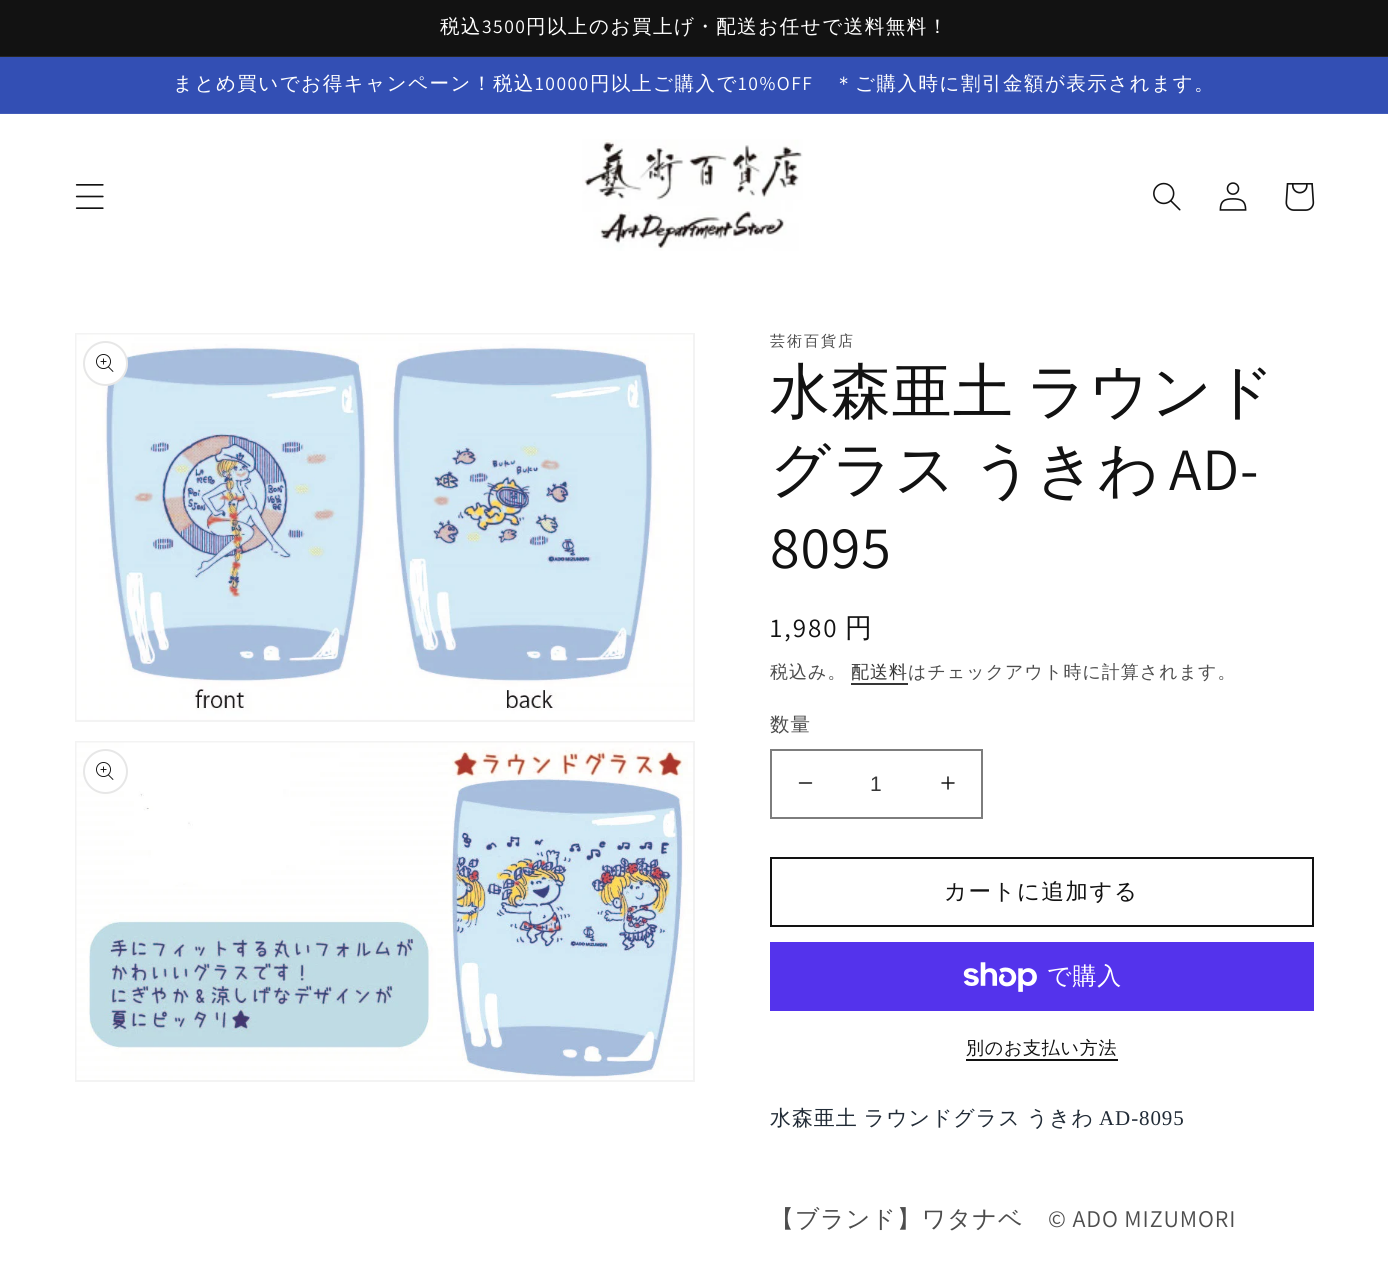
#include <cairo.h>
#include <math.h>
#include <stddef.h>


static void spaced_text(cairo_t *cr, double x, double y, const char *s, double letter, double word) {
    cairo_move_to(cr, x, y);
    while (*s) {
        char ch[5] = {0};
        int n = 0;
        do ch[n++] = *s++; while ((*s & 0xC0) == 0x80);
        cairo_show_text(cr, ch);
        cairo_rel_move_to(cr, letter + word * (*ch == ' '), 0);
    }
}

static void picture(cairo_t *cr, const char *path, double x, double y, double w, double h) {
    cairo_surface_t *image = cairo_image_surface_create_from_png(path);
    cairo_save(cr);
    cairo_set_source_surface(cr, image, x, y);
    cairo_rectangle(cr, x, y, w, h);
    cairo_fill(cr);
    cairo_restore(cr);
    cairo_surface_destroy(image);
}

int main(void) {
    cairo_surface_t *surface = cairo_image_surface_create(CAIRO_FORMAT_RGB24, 1388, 1288);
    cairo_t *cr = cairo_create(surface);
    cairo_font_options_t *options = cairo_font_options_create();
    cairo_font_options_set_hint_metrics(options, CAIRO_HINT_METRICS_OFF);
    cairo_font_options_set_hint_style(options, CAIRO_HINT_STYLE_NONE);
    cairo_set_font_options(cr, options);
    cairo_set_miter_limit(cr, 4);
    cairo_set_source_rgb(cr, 1, 1, 1);
    cairo_paint(cr);
    cairo_set_source_rgb(cr, 0.071, 0.071, 0.071);
    cairo_rectangle(cr, 0, 0, 1388, 56);
    cairo_fill(cr);
    cairo_set_source_rgb(cr, 0.145, 0.145, 0.145);
    cairo_rectangle(cr, 0, 56, 1388, 1);
    cairo_fill(cr);
    cairo_select_font_face(cr, "WenQuanYi Zen Hei Medium", CAIRO_FONT_SLANT_NORMAL, CAIRO_FONT_WEIGHT_NORMAL);
    cairo_set_font_size(cr, 19.5);
    cairo_set_source_rgb(cr, 1, 1, 1);
    spaced_text(cr, 440, 33, "税込", 1.5, 0);
    cairo_select_font_face(cr, "Assistant", CAIRO_FONT_SLANT_NORMAL, CAIRO_FONT_WEIGHT_NORMAL);
    spaced_text(cr, 482, 33, "3500", 1.5, 0);
    cairo_select_font_face(cr, "WenQuanYi Zen Hei Medium", CAIRO_FONT_SLANT_NORMAL, CAIRO_FONT_WEIGHT_NORMAL);
    spaced_text(cr, 526, 33, "円以上のお買上げ・配送お任せで送料無料！", 1.5, 0);
    cairo_set_source_rgb(cr, 0.2, 0.31, 0.706);
    cairo_rectangle(cr, 0, 57, 1388, 56);
    cairo_fill(cr);
    cairo_set_source_rgb(cr, 0.263, 0.365, 0.729);
    cairo_rectangle(cr, 0, 113, 1388, 1);
    cairo_fill(cr);
    cairo_set_source_rgb(cr, 1, 1, 1);
    spaced_text(cr, 173, 90, "まとめ買いでお得キャンペーン！税込", 1.5, 0);
    cairo_select_font_face(cr, "Assistant", CAIRO_FONT_SLANT_NORMAL, CAIRO_FONT_WEIGHT_NORMAL);
    spaced_text(cr, 535, 90, "10000", 1.5, 0);
    cairo_select_font_face(cr, "WenQuanYi Zen Hei Medium", CAIRO_FONT_SLANT_NORMAL, CAIRO_FONT_WEIGHT_NORMAL);
    spaced_text(cr, 590, 90, "円以上ご購入で", 1.5, 0);
    cairo_select_font_face(cr, "Assistant", CAIRO_FONT_SLANT_NORMAL, CAIRO_FONT_WEIGHT_NORMAL);
    spaced_text(cr, 738, 90, "10%OFF", 1.5, 0);
    cairo_select_font_face(cr, "WenQuanYi Zen Hei Medium", CAIRO_FONT_SLANT_NORMAL, CAIRO_FONT_WEIGHT_NORMAL);
    spaced_text(cr, 834, 90, "＊ご購入時に割引金額が表示されます。", 1.5, 0);
    picture(cr, "img1.png", 75, 184, 29, 25);
    picture(cr, "img2.png", 582, 139, 221, 112);
    picture(cr, "img3.png", 1153, 182, 28, 29);
    picture(cr, "img4.png", 1219, 182, 28, 29);
    picture(cr, "img5.png", 1285, 183, 30, 28);
    cairo_rectangle(cr, 76, 334, 618, 387);
    cairo_set_source_rgb(cr, 0.953, 0.953, 0.953);
    cairo_stroke(cr);
    picture(cr, "img6.png", 76, 334, 617, 386);
    cairo_set_source_rgb(cr, 1, 1, 1);
    cairo_arc(cr, 105.5, 363.5, 22.5, 0, 2 * M_PI);
    cairo_fill(cr);
    cairo_arc(cr, 105.5, 363.5, 21.5, 0, 2 * M_PI);
    cairo_set_source_rgba(cr, 0.071, 0.071, 0.071, 0.1);
    cairo_stroke(cr);
    picture(cr, "img7.png", 96, 354, 18, 18);
    cairo_rectangle(cr, 76, 742, 618, 339);
    cairo_set_source_rgb(cr, 0.953, 0.953, 0.953);
    cairo_stroke(cr);
    picture(cr, "img8.png", 76, 742, 617, 338);
    cairo_set_source_rgb(cr, 1, 1, 1);
    cairo_arc(cr, 105.5, 771.5, 21.5, 0, 2 * M_PI);
    cairo_fill_preserve(cr);
    cairo_set_source_rgb(cr, 0.906, 0.906, 0.906);
    cairo_stroke(cr);
    picture(cr, "img7.png", 96, 762, 18, 18);
    cairo_set_font_size(cr, 15);
    cairo_set_source_rgb(cr, 0.302, 0.302, 0.302);
    spaced_text(cr, 770, 346, "芸術百貨店", 2, 0);
    cairo_set_font_size(cr, 60);
    cairo_set_source_rgb(cr, 0.071, 0.071, 0.071);
    spaced_text(cr, 770, 412, "水森亜土 ラウンド", 0.9, -6);
    spaced_text(cr, 770, 490, "グラス うきわ", 0.9, -3);
    cairo_select_font_face(cr, "Assistant", CAIRO_FONT_SLANT_NORMAL, CAIRO_FONT_WEIGHT_NORMAL);
    spaced_text(cr, 1169, 490, "AD-", 0.9, 0);
    spaced_text(cr, 770, 568, "8095", 0.9, 0);
    cairo_set_font_size(cr, 27);
    spaced_text(cr, 770, 637, "1,980", 2, 0);
    cairo_select_font_face(cr, "WenQuanYi Zen Hei Medium", CAIRO_FONT_SLANT_NORMAL, CAIRO_FONT_WEIGHT_NORMAL);
    spaced_text(cr, 845, 637, "円", 2, 0);
    cairo_set_font_size(cr, 18);
    cairo_set_source_rgb(cr, 0.302, 0.302, 0.302);
    spaced_text(cr, 770, 678, "税込み。", 1, 0);
    cairo_set_source_rgb(cr, 0.212, 0.212, 0.212);
    spaced_text(cr, 851, 678, "配送料", 1, 0);
    cairo_rectangle(cr, 851, 683, 57, 2);
    cairo_fill(cr);
    cairo_set_source_rgb(cr, 0.302, 0.302, 0.302);
    spaced_text(cr, 908, 678, "はチェックアウト時に計算されます。", 1, 0);
    cairo_set_font_size(cr, 19.5);
    spaced_text(cr, 770, 731, "数量", 1, 0);
    picture(cr, "img9.png", 798, 782, 15, 2);
    picture(cr, "img10.png", 941, 776, 14, 14);
    cairo_rectangle(cr, 771, 750, 211, 68);
    cairo_set_source_rgb(cr, 0.49, 0.49, 0.49);
    cairo_stroke(cr);
    cairo_select_font_face(cr, "Liberation Sans", CAIRO_FONT_SLANT_NORMAL, CAIRO_FONT_WEIGHT_NORMAL);
    cairo_set_font_size(cr, 21);
    cairo_set_source_rgb(cr, 0.212, 0.212, 0.212);
    cairo_move_to(cr, 870, 791);
    cairo_show_text(cr, "1");
    cairo_rectangle(cr, 771, 858, 542, 68);
    cairo_set_source_rgb(cr, 0.071, 0.071, 0.071);
    cairo_stroke(cr);
    cairo_select_font_face(cr, "WenQuanYi Zen Hei Medium", CAIRO_FONT_SLANT_NORMAL, CAIRO_FONT_WEIGHT_NORMAL);
    cairo_set_font_size(cr, 22.5);
    spaced_text(cr, 944, 899, "カートに追加する", 1.5, 0);
    cairo_set_source_rgb(cr, 0.329, 0.2, 0.922);
    cairo_rectangle(cr, 770, 942, 544, 69);
    cairo_fill(cr);
    picture(cr, "img11.png", 963, 962, 74, 30);
    cairo_set_font_size(cr, 24);
    cairo_set_source_rgb(cr, 1, 1, 1);
    spaced_text(cr, 1047, 984, "で購入", 0.9, 0);
    cairo_set_font_size(cr, 18);
    cairo_set_source_rgb(cr, 0.071, 0.071, 0.071);
    spaced_text(cr, 966, 1054, "別のお支払い方法", 0.75, 0);
    cairo_rectangle(cr, 966, 1059, 152, 2);
    cairo_fill(cr);
    cairo_set_font_size(cr, 21);
    cairo_set_source_rgb(cr, 0.129, 0.169, 0.212);
    spaced_text(cr, 770, 1125, "水森亜土 ラウンドグラス うきわ", 0.9, -1);
    cairo_select_font_face(cr, "Liberation Serif", CAIRO_FONT_SLANT_NORMAL, CAIRO_FONT_WEIGHT_NORMAL);
    spaced_text(cr, 1099, 1125, "AD-8095", 0.9, 0);
    cairo_select_font_face(cr, "WenQuanYi Zen Hei Medium", CAIRO_FONT_SLANT_NORMAL, CAIRO_FONT_WEIGHT_NORMAL);
    cairo_set_font_size(cr, 24);
    cairo_set_source_rgb(cr, 0.302, 0.302, 0.302);
    spaced_text(cr, 770, 1227, "【ブランド】ワタナベ", 0.9, 0);
    cairo_select_font_face(cr, "Assistant", CAIRO_FONT_SLANT_NORMAL, CAIRO_FONT_WEIGHT_NORMAL);
    spaced_text(cr, 1048, 1227, "© ADO MIZUMORI", 0.9, 0);
    cairo_surface_write_to_png(surface, "page.png");
    cairo_font_options_destroy(options);
    cairo_destroy(cr);
    cairo_surface_destroy(surface);
    return 0;
}
